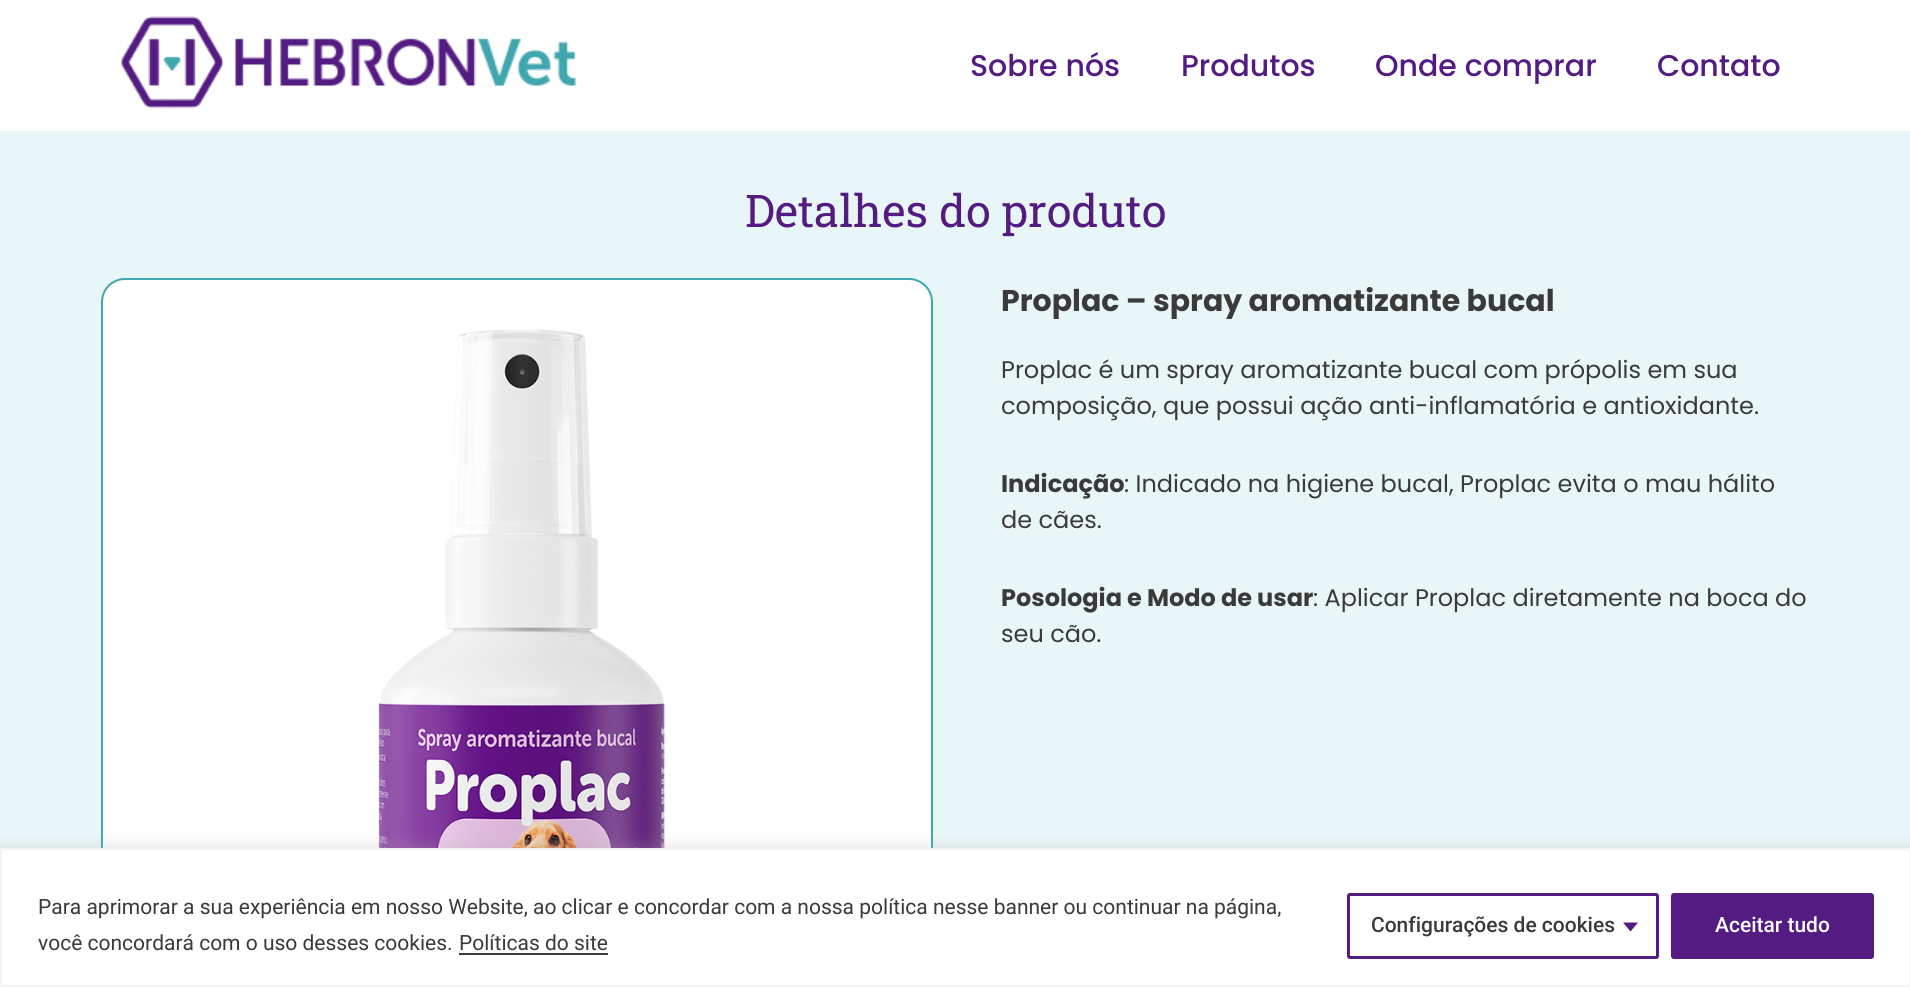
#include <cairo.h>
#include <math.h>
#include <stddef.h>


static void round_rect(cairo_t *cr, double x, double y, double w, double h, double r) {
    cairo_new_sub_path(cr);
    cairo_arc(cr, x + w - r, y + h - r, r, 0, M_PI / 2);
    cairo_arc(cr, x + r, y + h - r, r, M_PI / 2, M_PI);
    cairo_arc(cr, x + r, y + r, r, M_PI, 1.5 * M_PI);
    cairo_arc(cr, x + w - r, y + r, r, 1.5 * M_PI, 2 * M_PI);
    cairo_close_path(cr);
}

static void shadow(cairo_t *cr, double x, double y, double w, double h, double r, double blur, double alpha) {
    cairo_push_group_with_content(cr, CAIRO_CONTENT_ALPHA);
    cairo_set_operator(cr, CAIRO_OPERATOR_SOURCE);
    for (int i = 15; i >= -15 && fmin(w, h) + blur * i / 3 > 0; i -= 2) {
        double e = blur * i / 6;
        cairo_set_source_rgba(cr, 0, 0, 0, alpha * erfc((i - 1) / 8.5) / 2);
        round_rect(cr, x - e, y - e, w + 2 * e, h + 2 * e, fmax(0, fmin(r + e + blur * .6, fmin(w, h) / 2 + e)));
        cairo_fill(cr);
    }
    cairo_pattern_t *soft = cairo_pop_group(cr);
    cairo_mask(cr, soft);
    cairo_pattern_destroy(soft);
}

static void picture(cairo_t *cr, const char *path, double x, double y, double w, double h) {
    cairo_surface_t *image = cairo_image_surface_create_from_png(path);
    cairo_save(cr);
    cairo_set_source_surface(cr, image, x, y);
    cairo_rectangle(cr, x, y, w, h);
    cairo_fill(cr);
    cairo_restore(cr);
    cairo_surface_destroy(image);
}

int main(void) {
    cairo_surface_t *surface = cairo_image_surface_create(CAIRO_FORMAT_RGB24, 1910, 987);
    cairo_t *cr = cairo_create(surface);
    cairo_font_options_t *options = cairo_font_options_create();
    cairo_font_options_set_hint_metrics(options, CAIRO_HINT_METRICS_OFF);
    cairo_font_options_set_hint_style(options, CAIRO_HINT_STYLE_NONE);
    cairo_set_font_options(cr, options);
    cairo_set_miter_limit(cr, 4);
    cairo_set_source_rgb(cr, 1, 1, 1);
    cairo_paint(cr);
    picture(cr, "img1.png", 121, 16, 456, 93);
    cairo_select_font_face(cr, "Poppins Medium", CAIRO_FONT_SLANT_NORMAL, CAIRO_FONT_WEIGHT_NORMAL);
    cairo_set_font_size(cr, 30);
    cairo_set_source_rgb(cr, 0.329, 0.106, 0.51);
    cairo_move_to(cr, 970, 76);
    cairo_show_text(cr, "Sobre nós");
    cairo_move_to(cr, 1181, 76);
    cairo_show_text(cr, "Produtos");
    cairo_move_to(cr, 1375, 76);
    cairo_show_text(cr, "Onde comprar");
    cairo_move_to(cr, 1657, 76);
    cairo_show_text(cr, "Contato");
    cairo_set_source_rgb(cr, 0.914, 0.961, 0.965);
    cairo_rectangle(cr, 0, 131, 1910, 717);
    cairo_fill(cr);
    cairo_select_font_face(cr, "Roboto Slab", CAIRO_FONT_SLANT_NORMAL, CAIRO_FONT_WEIGHT_NORMAL);
    cairo_set_font_size(cr, 45);
    cairo_set_source_rgb(cr, 0.329, 0.106, 0.51);
    cairo_move_to(cr, 745, 227);
    cairo_show_text(cr, "Detalhes do produto");
    cairo_set_source_rgb(cr, 1, 1, 1);
    round_rect(cr, 102, 279, 830, 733, 23);
    cairo_fill_preserve(cr);
    cairo_set_source_rgb(cr, 0.251, 0.655, 0.682);
    cairo_stroke(cr);
    picture(cr, "img2.png", 378, 329, 287, 519);
    cairo_select_font_face(cr, "Poppins", CAIRO_FONT_SLANT_NORMAL, CAIRO_FONT_WEIGHT_BOLD);
    cairo_set_font_size(cr, 30);
    cairo_set_source_rgb(cr, 0.227, 0.227, 0.227);
    cairo_move_to(cr, 1001, 311);
    cairo_show_text(cr, "Proplac – spray aromatizante bucal");
    cairo_select_font_face(cr, "Poppins", CAIRO_FONT_SLANT_NORMAL, CAIRO_FONT_WEIGHT_NORMAL);
    cairo_set_font_size(cr, 24);
    cairo_move_to(cr, 1001, 378);
    cairo_show_text(cr, "Proplac é um spray aromatizante bucal com própolis em sua");
    cairo_move_to(cr, 1001, 414);
    cairo_show_text(cr, "composição, que possui ação anti-inflamatória e antioxidante.");
    cairo_select_font_face(cr, "Poppins", CAIRO_FONT_SLANT_NORMAL, CAIRO_FONT_WEIGHT_BOLD);
    cairo_move_to(cr, 1001, 492);
    cairo_show_text(cr, "Indicação");
    cairo_select_font_face(cr, "Poppins", CAIRO_FONT_SLANT_NORMAL, CAIRO_FONT_WEIGHT_NORMAL);
    cairo_move_to(cr, 1124, 492);
    cairo_show_text(cr, ": Indicado na higiene bucal, Proplac evita o mau hálito");
    cairo_move_to(cr, 1001, 528);
    cairo_show_text(cr, "de cães.");
    cairo_select_font_face(cr, "Poppins", CAIRO_FONT_SLANT_NORMAL, CAIRO_FONT_WEIGHT_BOLD);
    cairo_move_to(cr, 1001, 606);
    cairo_show_text(cr, "Posologia e Modo de usar");
    cairo_select_font_face(cr, "Poppins", CAIRO_FONT_SLANT_NORMAL, CAIRO_FONT_WEIGHT_NORMAL);
    cairo_move_to(cr, 1313, 606);
    cairo_show_text(cr, ": Aplicar Proplac diretamente na boca do");
    cairo_move_to(cr, 1001, 642);
    cairo_show_text(cr, "seu cão.");
    cairo_set_source_rgb(cr, 0.675, 0.671, 0.671);
    shadow(cr, 0, 846, 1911, 140, 0, 7.5, 0.3);
    cairo_set_source_rgb(cr, 1, 1, 1);
    cairo_rectangle(cr, 1, 849, 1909, 137);
    cairo_fill_preserve(cr);
    cairo_set_source_rgb(cr, 0.957, 0.957, 0.957);
    cairo_stroke(cr);
    cairo_select_font_face(cr, "Roboto", CAIRO_FONT_SLANT_NORMAL, CAIRO_FONT_WEIGHT_NORMAL);
    cairo_set_font_size(cr, 21);
    cairo_set_source_rgb(cr, 0.227, 0.227, 0.227);
    cairo_move_to(cr, 38, 914);
    cairo_show_text(cr, "Para aprimorar a sua experiência em nosso Website, ao clicar e concordar com a nossa política nesse banner ou continuar na página,");
    cairo_move_to(cr, 38, 950);
    cairo_show_text(cr, "você concordará com o uso desses cookies.");
    cairo_move_to(cr, 459, 950);
    cairo_show_text(cr, "Políticas do site");
    cairo_rectangle(cr, 459, 953, 149, 2);
    cairo_fill(cr);
    round_rect(cr, 1348.5, 894.5, 309, 63, 1.5);
    cairo_set_source_rgb(cr, 0.329, 0.106, 0.51);
    cairo_set_line_width(cr, 3);
    cairo_stroke(cr);
    cairo_select_font_face(cr, "Roboto Medium", CAIRO_FONT_SLANT_NORMAL, CAIRO_FONT_WEIGHT_NORMAL);
    cairo_set_source_rgb(cr, 0.227, 0.227, 0.227);
    cairo_move_to(cr, 1371, 932);
    cairo_show_text(cr, "Configurações de cookies");
    cairo_set_source_rgb(cr, 0.329, 0.106, 0.51);
    cairo_new_path(cr);
    cairo_move_to(cr, 1623, 922.5);
    cairo_line_to(cr, 1638, 922.5);
    cairo_line_to(cr, 1630.5, 931.5);
    cairo_close_path(cr);
    cairo_fill(cr);
    round_rect(cr, 1672.5, 894.5, 200, 63, 1.5);
    cairo_fill_preserve(cr);
    cairo_stroke(cr);
    cairo_set_source_rgb(cr, 1, 1, 1);
    cairo_move_to(cr, 1715, 932);
    cairo_show_text(cr, "Aceitar tudo");
    cairo_surface_write_to_png(surface, "page.png");
    cairo_font_options_destroy(options);
    cairo_destroy(cr);
    cairo_surface_destroy(surface);
    return 0;
}
